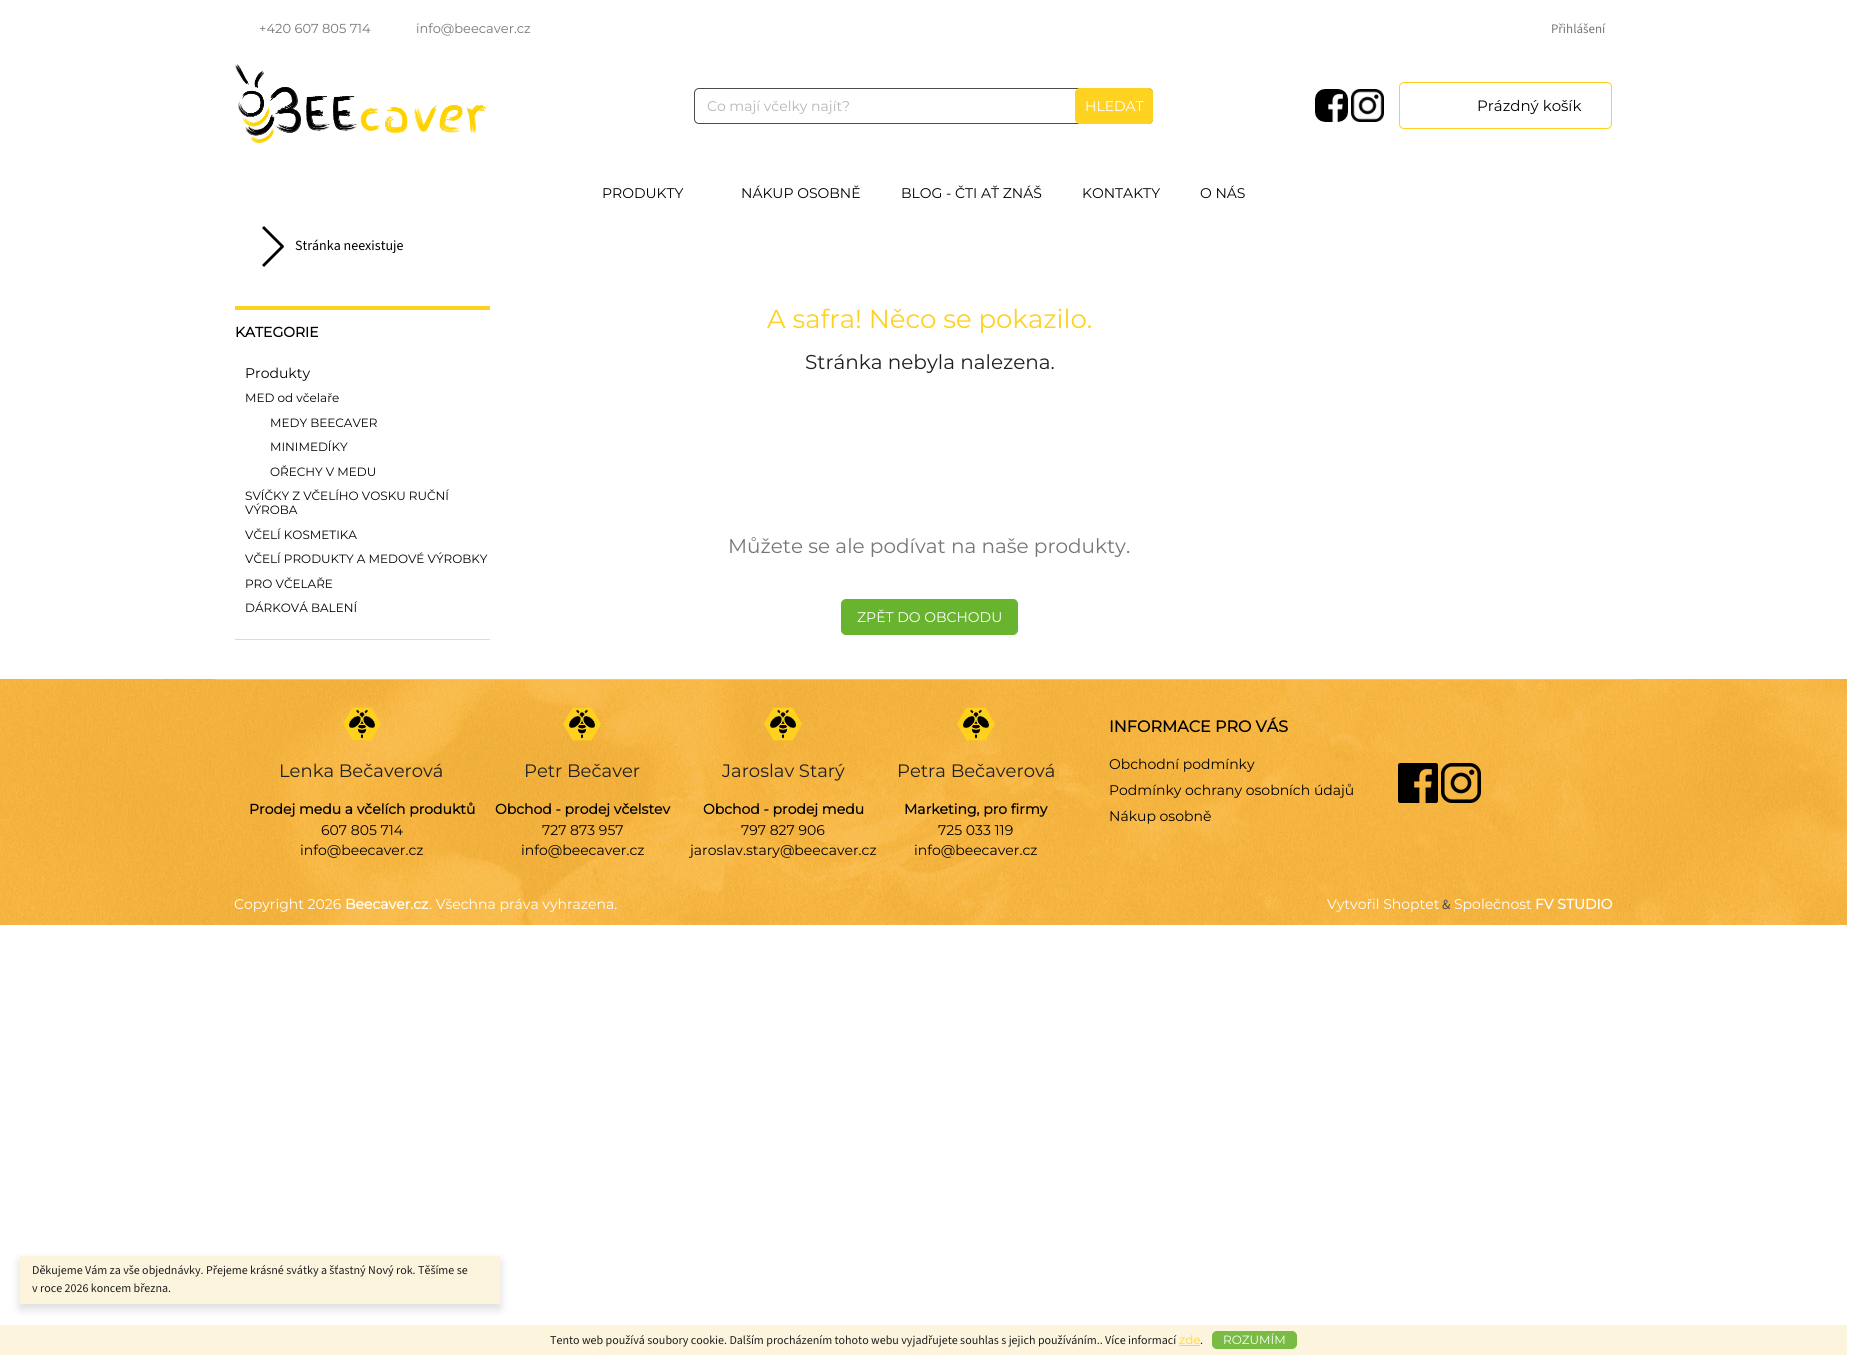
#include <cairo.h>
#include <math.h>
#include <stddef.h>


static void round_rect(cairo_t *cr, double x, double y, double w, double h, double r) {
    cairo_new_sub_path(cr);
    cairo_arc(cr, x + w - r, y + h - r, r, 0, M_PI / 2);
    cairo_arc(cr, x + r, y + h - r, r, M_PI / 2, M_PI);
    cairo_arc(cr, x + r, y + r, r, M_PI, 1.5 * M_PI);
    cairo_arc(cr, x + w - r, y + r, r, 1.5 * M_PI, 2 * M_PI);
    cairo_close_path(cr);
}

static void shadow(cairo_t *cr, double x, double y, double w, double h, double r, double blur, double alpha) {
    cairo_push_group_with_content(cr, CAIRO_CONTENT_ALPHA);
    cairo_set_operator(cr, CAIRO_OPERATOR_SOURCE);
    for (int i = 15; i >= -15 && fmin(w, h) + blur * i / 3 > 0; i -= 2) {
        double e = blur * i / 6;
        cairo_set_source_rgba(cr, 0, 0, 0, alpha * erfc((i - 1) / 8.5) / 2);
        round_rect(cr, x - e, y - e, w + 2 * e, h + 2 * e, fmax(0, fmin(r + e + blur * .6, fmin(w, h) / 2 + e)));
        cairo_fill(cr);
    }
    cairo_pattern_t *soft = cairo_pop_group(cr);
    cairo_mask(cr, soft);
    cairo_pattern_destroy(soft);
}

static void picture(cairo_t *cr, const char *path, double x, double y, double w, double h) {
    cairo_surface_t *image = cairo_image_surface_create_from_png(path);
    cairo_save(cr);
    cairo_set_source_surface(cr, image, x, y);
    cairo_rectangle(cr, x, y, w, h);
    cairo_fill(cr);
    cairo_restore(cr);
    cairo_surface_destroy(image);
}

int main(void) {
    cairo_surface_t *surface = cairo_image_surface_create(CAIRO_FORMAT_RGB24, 1862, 1355);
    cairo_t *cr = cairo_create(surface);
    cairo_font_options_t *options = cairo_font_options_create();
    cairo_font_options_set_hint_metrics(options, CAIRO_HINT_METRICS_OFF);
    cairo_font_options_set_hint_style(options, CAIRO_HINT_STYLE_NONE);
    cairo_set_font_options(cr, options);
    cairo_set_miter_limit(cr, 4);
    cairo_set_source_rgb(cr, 1, 1, 1);
    cairo_paint(cr);
    cairo_select_font_face(cr, "Montserrat Thin", CAIRO_FONT_SLANT_NORMAL, CAIRO_FONT_WEIGHT_NORMAL);
    cairo_set_font_size(cr, 13);
    cairo_set_source_rgb(cr, 0.463, 0.463, 0.463);
    cairo_move_to(cr, 259, 33);
    cairo_show_text(cr, "+420 607 805 714");
    cairo_move_to(cr, 416, 33);
    cairo_show_text(cr, "info@beecaver.cz");
    cairo_select_font_face(cr, "Source Sans 3", CAIRO_FONT_SLANT_NORMAL, CAIRO_FONT_WEIGHT_NORMAL);
    cairo_move_to(cr, 1551, 33);
    cairo_show_text(cr, "Přihlášení");
    picture(cr, "img1.png", 235, 64, 252, 79);
    round_rect(cr, 694.5, 88.5, 458, 35, 4.5);
    cairo_set_source_rgb(cr, 0.302, 0.302, 0.302);
    cairo_set_line_width(cr, 1);
    cairo_stroke(cr);
    cairo_select_font_face(cr, "Montserrat Thin", CAIRO_FONT_SLANT_NORMAL, CAIRO_FONT_WEIGHT_NORMAL);
    cairo_set_font_size(cr, 14);
    cairo_set_source_rgb(cr, 0.714, 0.714, 0.714);
    cairo_move_to(cr, 707, 111);
    cairo_show_text(cr, "Co mají včelky najít?");
    cairo_set_source_rgb(cr, 1, 0.82, 0.125);
    round_rect(cr, 1075.5, 88.5, 77, 35, 4.5);
    cairo_fill_preserve(cr);
    cairo_stroke(cr);
    cairo_set_source_rgb(cr, 1, 1, 1);
    cairo_move_to(cr, 1085, 111);
    cairo_show_text(cr, "HLEDAT");
    picture(cr, "img2.png", 1315, 89, 33, 33);
    picture(cr, "img3.png", 1351, 89, 33, 33);
    round_rect(cr, 1399.5, 82.5, 212, 46, 4.5);
    cairo_set_source_rgb(cr, 1, 0.82, 0.125);
    cairo_stroke(cr);
    cairo_set_font_size(cr, 15);
    cairo_set_source_rgb(cr, 0, 0, 0);
    cairo_move_to(cr, 1477, 111);
    cairo_show_text(cr, "Prázdný košík");
    cairo_set_font_size(cr, 14);
    cairo_move_to(cr, 602, 198);
    cairo_show_text(cr, "PRODUKTY");
    cairo_move_to(cr, 741, 198);
    cairo_show_text(cr, "NÁKUP OSOBNĚ");
    cairo_move_to(cr, 901, 198);
    cairo_show_text(cr, "BLOG - ČTI AŤ ZNÁŠ");
    cairo_move_to(cr, 1082, 198);
    cairo_show_text(cr, "KONTAKTY");
    cairo_move_to(cr, 1200, 198);
    cairo_show_text(cr, "O NÁS");
    cairo_new_path(cr);
    cairo_move_to(cr, 262, 228);
    cairo_line_to(cr, 264, 226);
    cairo_line_to(cr, 284, 246);
    cairo_line_to(cr, 282, 248);
    cairo_close_path(cr);
    cairo_fill(cr);
    cairo_new_path(cr);
    cairo_move_to(cr, 282, 245);
    cairo_line_to(cr, 284, 247);
    cairo_line_to(cr, 264, 267);
    cairo_line_to(cr, 262, 265);
    cairo_close_path(cr);
    cairo_fill(cr);
    cairo_select_font_face(cr, "Source Sans 3", CAIRO_FONT_SLANT_NORMAL, CAIRO_FONT_WEIGHT_NORMAL);
    cairo_move_to(cr, 295, 250);
    cairo_show_text(cr, "Stránka neexistuje");
    cairo_set_source_rgb(cr, 0.855, 0.855, 0.855);
    cairo_rectangle(cr, 235, 639, 255, 1);
    cairo_fill(cr);
    cairo_set_source_rgb(cr, 1, 0.82, 0.122);
    cairo_rectangle(cr, 235, 306, 255, 4);
    cairo_fill(cr);
    cairo_select_font_face(cr, "Montserrat", CAIRO_FONT_SLANT_NORMAL, CAIRO_FONT_WEIGHT_BOLD);
    cairo_set_source_rgb(cr, 0, 0, 0);
    cairo_move_to(cr, 235, 337);
    cairo_show_text(cr, "KATEGORIE");
    cairo_select_font_face(cr, "Montserrat Thin", CAIRO_FONT_SLANT_NORMAL, CAIRO_FONT_WEIGHT_NORMAL);
    cairo_move_to(cr, 245, 378);
    cairo_show_text(cr, "Produkty");
    cairo_set_font_size(cr, 12);
    cairo_move_to(cr, 245, 402);
    cairo_show_text(cr, "MED od včelaře");
    cairo_move_to(cr, 270, 427);
    cairo_show_text(cr, "MEDY BEECAVER");
    cairo_move_to(cr, 270, 451);
    cairo_show_text(cr, "MINIMEDÍKY");
    cairo_move_to(cr, 270, 476);
    cairo_show_text(cr, "OŘECHY V MEDU");
    cairo_move_to(cr, 245, 500);
    cairo_show_text(cr, "SVÍČKY Z VČELÍHO VOSKU RUČNÍ");
    cairo_move_to(cr, 245, 514);
    cairo_show_text(cr, "VÝROBA");
    cairo_move_to(cr, 245, 539);
    cairo_show_text(cr, "VČELÍ KOSMETIKA");
    cairo_move_to(cr, 245, 563);
    cairo_show_text(cr, "VČELÍ PRODUKTY A MEDOVÉ VÝROBKY");
    cairo_move_to(cr, 245, 588);
    cairo_show_text(cr, "PRO VČELAŘE");
    cairo_move_to(cr, 245, 612);
    cairo_show_text(cr, "DÁRKOVÁ BALENÍ");
    cairo_set_font_size(cr, 26);
    cairo_set_source_rgb(cr, 1, 0.82, 0.125);
    cairo_move_to(cr, 767, 328);
    cairo_show_text(cr, "A safra! Něco se pokazilo.");
    cairo_set_font_size(cr, 20);
    cairo_set_source_rgb(cr, 0.122, 0.122, 0.122);
    cairo_move_to(cr, 805, 369);
    cairo_show_text(cr, "Stránka nebyla nalezena.");
    cairo_set_source_rgb(cr, 0.463, 0.463, 0.463);
    cairo_move_to(cr, 728, 553);
    cairo_show_text(cr, "Můžete se ale podívat na naše produkty.");
    cairo_set_source_rgb(cr, 0.412, 0.706, 0.18);
    round_rect(cr, 841.5, 599.5, 176, 35, 4.5);
    cairo_fill_preserve(cr);
    cairo_stroke(cr);
    cairo_set_font_size(cr, 14);
    cairo_set_source_rgb(cr, 1, 1, 1);
    cairo_move_to(cr, 857, 622);
    cairo_show_text(cr, "ZPĚT DO OBCHODU");
    picture(cr, "img4.png", 0, 679, 1847, 246);
    cairo_set_source_rgb(cr, 1, 0.82, 0.125);
    cairo_rectangle(cr, 215, 679, 1418, 1);
    cairo_fill(cr);
    picture(cr, "img5.png", 343, 707, 38, 34);
    cairo_set_font_size(cr, 18);
    cairo_set_source_rgb(cr, 0.122, 0.122, 0.122);
    cairo_move_to(cr, 279, 777);
    cairo_show_text(cr, "Lenka Bečaverová");
    cairo_select_font_face(cr, "Montserrat", CAIRO_FONT_SLANT_NORMAL, CAIRO_FONT_WEIGHT_BOLD);
    cairo_set_font_size(cr, 14);
    cairo_set_source_rgb(cr, 0, 0, 0);
    cairo_move_to(cr, 249, 814);
    cairo_show_text(cr, "Prodej medu a včelích produktů");
    cairo_select_font_face(cr, "Montserrat Thin", CAIRO_FONT_SLANT_NORMAL, CAIRO_FONT_WEIGHT_NORMAL);
    cairo_move_to(cr, 321, 835);
    cairo_show_text(cr, "607 805 714");
    cairo_move_to(cr, 300, 855);
    cairo_show_text(cr, "info@beecaver.cz");
    picture(cr, "img6.png", 563, 707, 38, 34);
    cairo_set_font_size(cr, 18);
    cairo_set_source_rgb(cr, 0.122, 0.122, 0.122);
    cairo_move_to(cr, 524, 777);
    cairo_show_text(cr, "Petr Bečaver");
    cairo_select_font_face(cr, "Montserrat", CAIRO_FONT_SLANT_NORMAL, CAIRO_FONT_WEIGHT_BOLD);
    cairo_set_font_size(cr, 14);
    cairo_set_source_rgb(cr, 0, 0, 0);
    cairo_move_to(cr, 495, 814);
    cairo_show_text(cr, "Obchod - prodej včelstev");
    cairo_select_font_face(cr, "Montserrat Thin", CAIRO_FONT_SLANT_NORMAL, CAIRO_FONT_WEIGHT_NORMAL);
    cairo_move_to(cr, 542, 835);
    cairo_show_text(cr, "727 873 957");
    cairo_move_to(cr, 521, 855);
    cairo_show_text(cr, "info@beecaver.cz");
    picture(cr, "img7.png", 764, 707, 38, 34);
    cairo_set_font_size(cr, 18);
    cairo_set_source_rgb(cr, 0.122, 0.122, 0.122);
    cairo_move_to(cr, 722, 777);
    cairo_show_text(cr, "Jaroslav Starý");
    cairo_select_font_face(cr, "Montserrat", CAIRO_FONT_SLANT_NORMAL, CAIRO_FONT_WEIGHT_BOLD);
    cairo_set_font_size(cr, 14);
    cairo_set_source_rgb(cr, 0, 0, 0);
    cairo_move_to(cr, 703, 814);
    cairo_show_text(cr, "Obchod - prodej medu");
    cairo_select_font_face(cr, "Montserrat Thin", CAIRO_FONT_SLANT_NORMAL, CAIRO_FONT_WEIGHT_NORMAL);
    cairo_move_to(cr, 741, 835);
    cairo_show_text(cr, "797 827 906");
    cairo_move_to(cr, 690, 855);
    cairo_show_text(cr, "jaroslav.stary@beecaver.cz");
    picture(cr, "img8.png", 957, 707, 38, 34);
    cairo_set_font_size(cr, 18);
    cairo_set_source_rgb(cr, 0.122, 0.122, 0.122);
    cairo_move_to(cr, 897, 777);
    cairo_show_text(cr, "Petra Bečaverová");
    cairo_select_font_face(cr, "Montserrat", CAIRO_FONT_SLANT_NORMAL, CAIRO_FONT_WEIGHT_BOLD);
    cairo_set_font_size(cr, 14);
    cairo_set_source_rgb(cr, 0, 0, 0);
    cairo_move_to(cr, 904, 814);
    cairo_show_text(cr, "Marketing, pro firmy");
    cairo_select_font_face(cr, "Montserrat Thin", CAIRO_FONT_SLANT_NORMAL, CAIRO_FONT_WEIGHT_NORMAL);
    cairo_move_to(cr, 938, 835);
    cairo_show_text(cr, "725 033 119");
    cairo_move_to(cr, 914, 855);
    cairo_show_text(cr, "info@beecaver.cz");
    cairo_select_font_face(cr, "Montserrat", CAIRO_FONT_SLANT_NORMAL, CAIRO_FONT_WEIGHT_BOLD);
    cairo_set_font_size(cr, 16);
    cairo_move_to(cr, 1109, 732);
    cairo_show_text(cr, "INFORMACE PRO VÁS");
    cairo_select_font_face(cr, "Montserrat Thin", CAIRO_FONT_SLANT_NORMAL, CAIRO_FONT_WEIGHT_NORMAL);
    cairo_set_font_size(cr, 14);
    cairo_move_to(cr, 1109, 769);
    cairo_show_text(cr, "Obchodní podmínky");
    cairo_move_to(cr, 1109, 795);
    cairo_show_text(cr, "Podmínky ochrany osobních údajů");
    cairo_move_to(cr, 1109, 821);
    cairo_show_text(cr, "Nákup osobně");
    picture(cr, "img9.png", 1398, 763, 40, 40);
    picture(cr, "img10.png", 1441, 763, 40, 40);
    cairo_set_source_rgb(cr, 1, 1, 1);
    cairo_move_to(cr, 234, 909);
    cairo_show_text(cr, "Copyright 2026");
    cairo_select_font_face(cr, "Montserrat", CAIRO_FONT_SLANT_NORMAL, CAIRO_FONT_WEIGHT_BOLD);
    cairo_move_to(cr, 345, 909);
    cairo_show_text(cr, "Beecaver.cz");
    cairo_select_font_face(cr, "Montserrat Thin", CAIRO_FONT_SLANT_NORMAL, CAIRO_FONT_WEIGHT_NORMAL);
    cairo_move_to(cr, 429, 909);
    cairo_show_text(cr, ". Všechna práva vyhrazena.");
    cairo_move_to(cr, 1327, 909);
    cairo_show_text(cr, "Vytvořil Shoptet");
    cairo_select_font_face(cr, "Source Sans 3", CAIRO_FONT_SLANT_NORMAL, CAIRO_FONT_WEIGHT_NORMAL);
    cairo_set_source_rgb(cr, 0.302, 0.302, 0.302);
    cairo_move_to(cr, 1442, 909);
    cairo_show_text(cr, "&");
    cairo_select_font_face(cr, "Montserrat Thin", CAIRO_FONT_SLANT_NORMAL, CAIRO_FONT_WEIGHT_NORMAL);
    cairo_set_source_rgb(cr, 1, 1, 1);
    cairo_move_to(cr, 1454, 909);
    cairo_show_text(cr, "Společnost");
    cairo_select_font_face(cr, "Montserrat", CAIRO_FONT_SLANT_NORMAL, CAIRO_FONT_WEIGHT_BOLD);
    cairo_move_to(cr, 1535, 909);
    cairo_show_text(cr, "FV STUDIO");
    cairo_set_source_rgb(cr, 0.102, 0.102, 0.102);
    shadow(cr, 20, 1261, 480, 48, 0, 5, 0.16);
    cairo_set_source_rgb(cr, 0.992, 0.957, 0.871);
    cairo_rectangle(cr, 20, 1256, 480, 48);
    cairo_fill(cr);
    cairo_select_font_face(cr, "Source Sans 3", CAIRO_FONT_SLANT_NORMAL, CAIRO_FONT_WEIGHT_NORMAL);
    cairo_set_font_size(cr, 12);
    cairo_set_source_rgb(cr, 0.122, 0.122, 0.122);
    cairo_move_to(cr, 32, 1274);
    cairo_show_text(cr, "Děkujeme Vám za vše objednávky. Přejeme krásné svátky a šťastný Nový rok. Těšíme se");
    cairo_move_to(cr, 32, 1292);
    cairo_show_text(cr, "v roce 2026 koncem března.");
    cairo_set_source_rgb(cr, 0.992, 0.957, 0.871);
    cairo_rectangle(cr, 0, 1325, 1847, 30);
    cairo_fill(cr);
    cairo_set_source_rgb(cr, 0.122, 0.122, 0.122);
    cairo_move_to(cr, 550, 1344);
    cairo_show_text(cr, "Tento web používá soubory cookie. Dalším procházením tohoto webu vyjadřujete souhlas s jejich používáním.. Více informací");
    cairo_select_font_face(cr, "Montserrat Thin", CAIRO_FONT_SLANT_NORMAL, CAIRO_FONT_WEIGHT_NORMAL);
    cairo_set_source_rgb(cr, 1, 0.839, 0.212);
    cairo_move_to(cr, 1179, 1344);
    cairo_show_text(cr, "zde");
    cairo_rectangle(cr, 1179, 1345, 21, 1);
    cairo_fill(cr);
    cairo_select_font_face(cr, "Source Sans 3", CAIRO_FONT_SLANT_NORMAL, CAIRO_FONT_WEIGHT_NORMAL);
    cairo_set_source_rgb(cr, 0.122, 0.122, 0.122);
    cairo_move_to(cr, 1200, 1344);
    cairo_show_text(cr, ".");
    cairo_set_source_rgb(cr, 0.471, 0.737, 0.263);
    round_rect(cr, 1212.5, 1331.5, 84, 17, 4.5);
    cairo_fill_preserve(cr);
    cairo_stroke(cr);
    cairo_select_font_face(cr, "Montserrat Thin", CAIRO_FONT_SLANT_NORMAL, CAIRO_FONT_WEIGHT_NORMAL);
    cairo_set_source_rgb(cr, 1, 1, 1);
    cairo_move_to(cr, 1223, 1344);
    cairo_show_text(cr, "ROZUMÍM");
    cairo_surface_write_to_png(surface, "page.png");
    cairo_font_options_destroy(options);
    cairo_destroy(cr);
    cairo_surface_destroy(surface);
    return 0;
}
